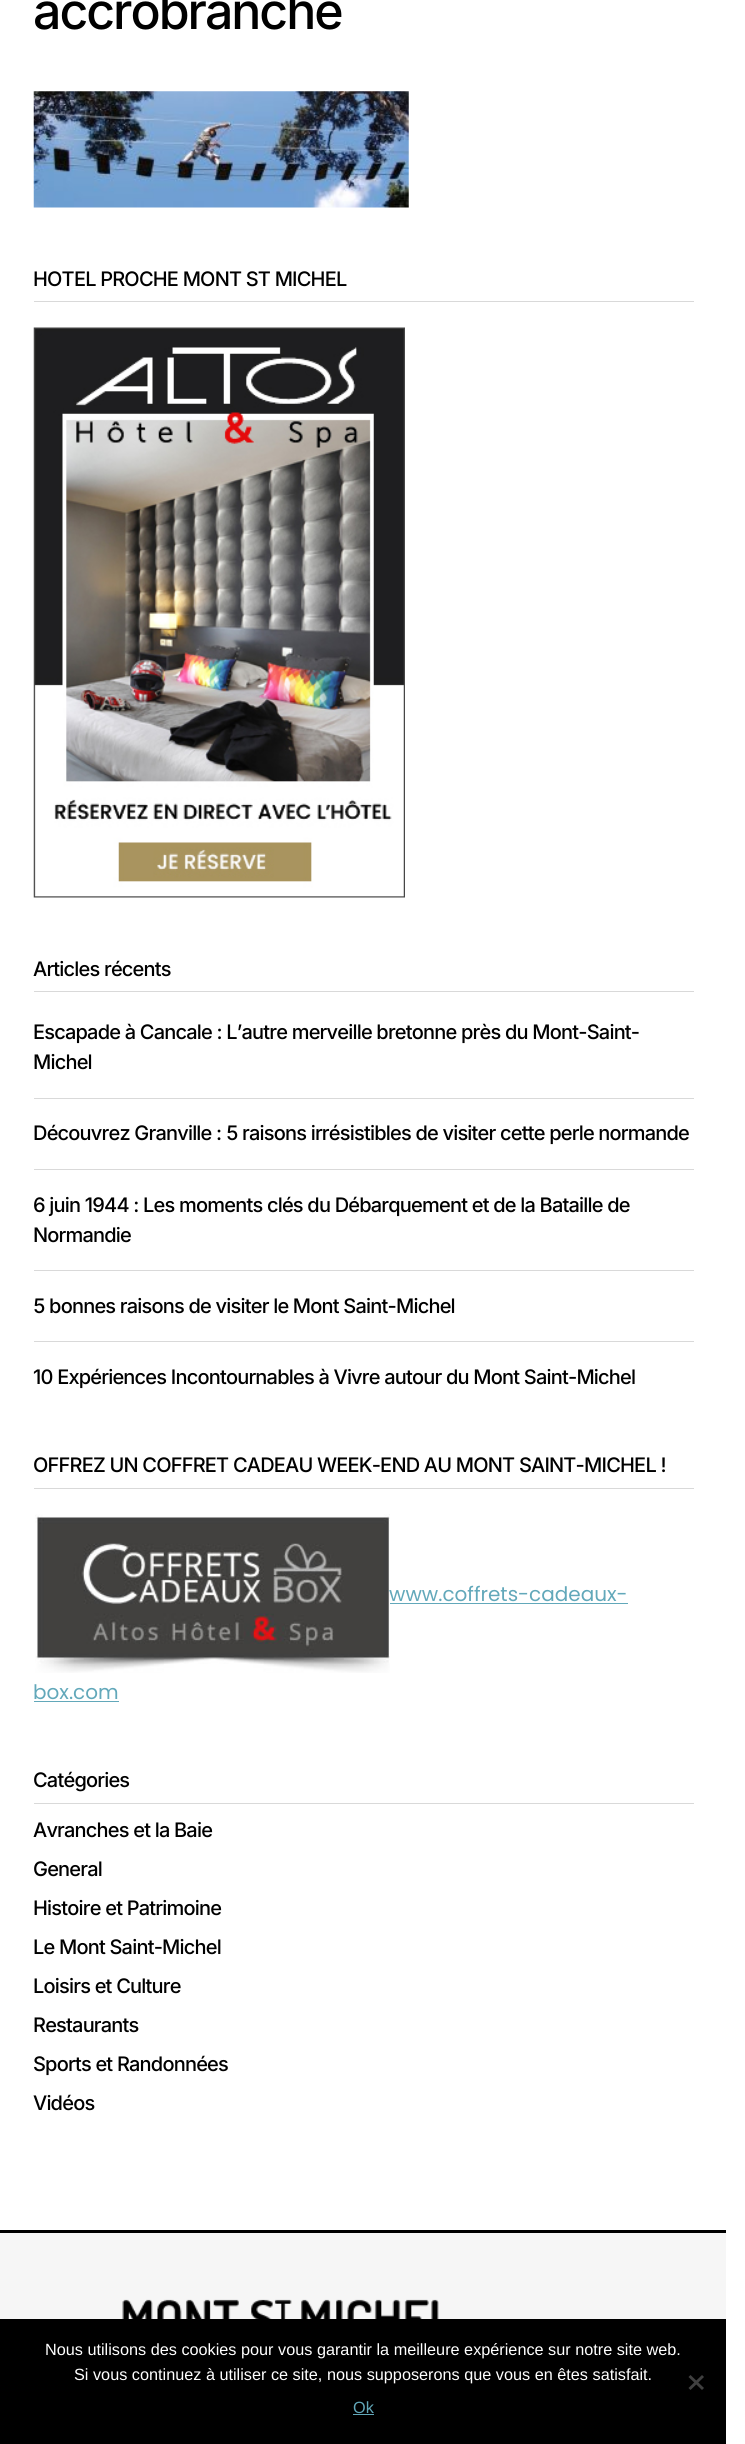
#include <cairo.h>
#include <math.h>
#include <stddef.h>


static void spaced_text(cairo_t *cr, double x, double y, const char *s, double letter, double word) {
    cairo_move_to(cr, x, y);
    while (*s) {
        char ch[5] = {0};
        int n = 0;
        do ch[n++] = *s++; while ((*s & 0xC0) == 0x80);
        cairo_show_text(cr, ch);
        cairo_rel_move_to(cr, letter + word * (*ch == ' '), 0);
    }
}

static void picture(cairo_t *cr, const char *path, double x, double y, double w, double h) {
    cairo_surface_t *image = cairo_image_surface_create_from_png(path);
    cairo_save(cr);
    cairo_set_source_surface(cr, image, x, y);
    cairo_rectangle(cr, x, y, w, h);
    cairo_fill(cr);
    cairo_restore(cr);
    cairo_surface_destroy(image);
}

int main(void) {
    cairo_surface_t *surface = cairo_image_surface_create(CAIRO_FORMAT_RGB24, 745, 2444);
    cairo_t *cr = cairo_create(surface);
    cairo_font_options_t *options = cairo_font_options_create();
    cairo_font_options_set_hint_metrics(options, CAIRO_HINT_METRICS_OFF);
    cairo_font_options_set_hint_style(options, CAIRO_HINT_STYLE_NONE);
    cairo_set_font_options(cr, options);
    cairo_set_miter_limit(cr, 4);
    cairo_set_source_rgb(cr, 1, 1, 1);
    cairo_paint(cr);
    cairo_select_font_face(cr, "Inter Medium", CAIRO_FONT_SLANT_NORMAL, CAIRO_FONT_WEIGHT_NORMAL);
    cairo_set_font_size(cr, 50);
    cairo_set_source_rgb(cr, 0, 0, 0);
    spaced_text(cr, 33, 29, "accrobranche", -2, 0);
    picture(cr, "img1.png", 33, 91, 376, 117);
    cairo_set_source_rgb(cr, 0.851, 0.851, 0.851);
    cairo_rectangle(cr, 34, 301, 660, 1);
    cairo_fill(cr);
    cairo_set_font_size(cr, 20);
    cairo_set_source_rgb(cr, 0, 0, 0);
    spaced_text(cr, 33, 286, "HOTEL PROCHE MONT ST MICHEL", -0.8, 0);
    picture(cr, "img2.png", 33, 327, 372, 571);
    cairo_set_source_rgb(cr, 0.851, 0.851, 0.851);
    cairo_rectangle(cr, 34, 991, 660, 1);
    cairo_fill(cr);
    cairo_set_source_rgb(cr, 0, 0, 0);
    spaced_text(cr, 33, 976, "Articles récents", -0.8, 0);
    cairo_set_source_rgb(cr, 0.851, 0.851, 0.851);
    cairo_rectangle(cr, 34, 1098, 660, 1);
    cairo_fill(cr);
    cairo_set_source_rgb(cr, 0, 0, 0);
    spaced_text(cr, 33, 1039, "Escapade à Cancale : L’autre merveille bretonne près du Mont-Saint-", -0.8, 0);
    spaced_text(cr, 33, 1069, "Michel", -0.8, 0);
    cairo_set_source_rgb(cr, 0.851, 0.851, 0.851);
    cairo_rectangle(cr, 34, 1169, 660, 1);
    cairo_fill(cr);
    cairo_set_source_rgb(cr, 0, 0, 0);
    spaced_text(cr, 33, 1140, "Découvrez Granville : 5 raisons irrésistibles de visiter cette perle normande", -0.8, 0);
    cairo_set_source_rgb(cr, 0.851, 0.851, 0.851);
    cairo_rectangle(cr, 34, 1270, 660, 1);
    cairo_fill(cr);
    cairo_set_source_rgb(cr, 0, 0, 0);
    spaced_text(cr, 33, 1212, "6 juin 1944 : Les moments clés du Débarquement et de la Bataille de", -0.8, 0);
    spaced_text(cr, 33, 1242, "Normandie", -0.8, 0);
    cairo_set_source_rgb(cr, 0.851, 0.851, 0.851);
    cairo_rectangle(cr, 34, 1341, 660, 1);
    cairo_fill(cr);
    cairo_set_source_rgb(cr, 0, 0, 0);
    spaced_text(cr, 33, 1313, "5 bonnes raisons de visiter le Mont Saint-Michel", -0.8, 0);
    spaced_text(cr, 33, 1384, "10 Expériences Incontournables à Vivre autour du Mont Saint-Michel", -0.8, 0);
    cairo_set_source_rgb(cr, 0.851, 0.851, 0.851);
    cairo_rectangle(cr, 34, 1488, 660, 1);
    cairo_fill(cr);
    cairo_set_source_rgb(cr, 0, 0, 0);
    spaced_text(cr, 33, 1472, "OFFREZ UN COFFRET CADEAU WEEK-END AU MONT SAINT-MICHEL !", -0.8, 0);
    picture(cr, "img3.png", 35, 1514, 355, 159);
    cairo_select_font_face(cr, "Poppins", CAIRO_FONT_SLANT_NORMAL, CAIRO_FONT_WEIGHT_NORMAL);
    cairo_set_source_rgb(cr, 0.384, 0.659, 0.729);
    cairo_move_to(cr, 389, 1601);
    cairo_show_text(cr, "www.coffrets-cadeaux-");
    cairo_rectangle(cr, 390, 1603, 238, 1);
    cairo_fill(cr);
    cairo_move_to(cr, 33, 1699);
    cairo_show_text(cr, "box.com");
    cairo_rectangle(cr, 34, 1701, 85, 1);
    cairo_fill(cr);
    cairo_set_source_rgb(cr, 0.851, 0.851, 0.851);
    cairo_rectangle(cr, 34, 1803, 660, 1);
    cairo_fill(cr);
    cairo_select_font_face(cr, "Inter Medium", CAIRO_FONT_SLANT_NORMAL, CAIRO_FONT_WEIGHT_NORMAL);
    cairo_set_source_rgb(cr, 0, 0, 0);
    spaced_text(cr, 33, 1787, "Catégories", -0.8, 0);
    spaced_text(cr, 33, 1837, "Avranches et la Baie", -0.8, 0);
    spaced_text(cr, 33, 1876, "General", -0.8, 0);
    spaced_text(cr, 33, 1915, "Histoire et Patrimoine", -0.8, 0);
    spaced_text(cr, 33, 1954, "Le Mont Saint-Michel", -0.8, 0);
    spaced_text(cr, 33, 1993, "Loisirs et Culture", -0.8, 0);
    spaced_text(cr, 33, 2032, "Restaurants", -0.8, 0);
    spaced_text(cr, 33, 2071, "Sports et Randonnées", -0.8, 0);
    spaced_text(cr, 33, 2110, "Vidéos", -0.8, 0);
    cairo_set_source_rgb(cr, 0.961, 0.961, 0.961);
    cairo_rectangle(cr, 0, 2233, 726, 86);
    cairo_fill(cr);
    cairo_set_source_rgb(cr, 0, 0, 0);
    cairo_rectangle(cr, 0, 2230, 726, 3);
    cairo_fill(cr);
    picture(cr, "img4.png", 122, 2299, 317, 20);
    cairo_rectangle(cr, 0, 2319, 726, 125);
    cairo_fill(cr);
    cairo_select_font_face(cr, "Liberation Sans", CAIRO_FONT_SLANT_NORMAL, CAIRO_FONT_WEIGHT_NORMAL);
    cairo_set_font_size(cr, 16.25);
    cairo_set_source_rgb(cr, 1, 1, 1);
    cairo_move_to(cr, 45, 2355);
    cairo_show_text(cr, "Nous utilisons des cookies pour vous garantir la meilleure expérience sur notre site web.");
    cairo_move_to(cr, 74, 2380);
    cairo_show_text(cr, "Si vous continuez à utiliser ce site, nous supposerons que vous en êtes satisfait.");
    cairo_set_source_rgb(cr, 0.251, 0.251, 0.251);
    cairo_new_path(cr);
    cairo_move_to(cr, 702, 2375);
    cairo_line_to(cr, 704, 2377);
    cairo_line_to(cr, 690.5, 2390);
    cairo_line_to(cr, 688.5, 2388);
    cairo_close_path(cr);
    cairo_fill(cr);
    cairo_new_path(cr);
    cairo_move_to(cr, 688.5, 2377);
    cairo_line_to(cr, 690.5, 2375);
    cairo_line_to(cr, 704, 2388);
    cairo_line_to(cr, 702, 2390);
    cairo_close_path(cr);
    cairo_fill(cr);
    cairo_set_source_rgb(cr, 0.384, 0.659, 0.729);
    cairo_move_to(cr, 353, 2413);
    cairo_show_text(cr, "Ok");
    cairo_rectangle(cr, 353, 2414, 21, 1);
    cairo_fill(cr);
    cairo_surface_write_to_png(surface, "page.png");
    cairo_font_options_destroy(options);
    cairo_destroy(cr);
    cairo_surface_destroy(surface);
    return 0;
}
